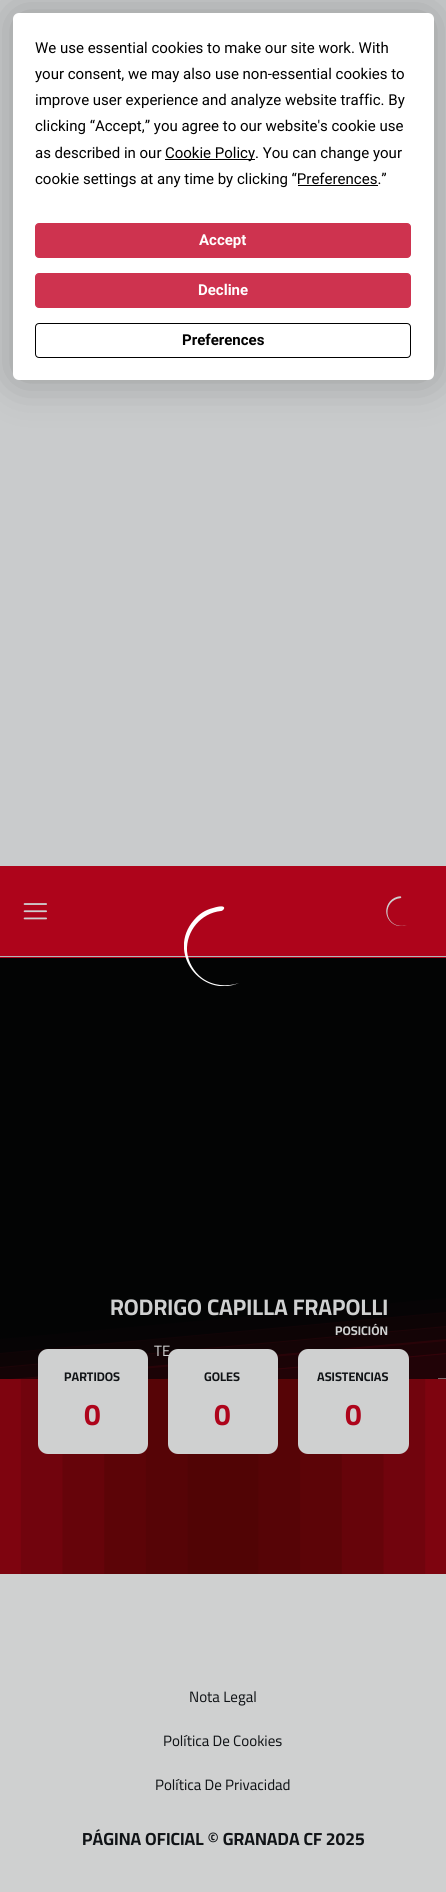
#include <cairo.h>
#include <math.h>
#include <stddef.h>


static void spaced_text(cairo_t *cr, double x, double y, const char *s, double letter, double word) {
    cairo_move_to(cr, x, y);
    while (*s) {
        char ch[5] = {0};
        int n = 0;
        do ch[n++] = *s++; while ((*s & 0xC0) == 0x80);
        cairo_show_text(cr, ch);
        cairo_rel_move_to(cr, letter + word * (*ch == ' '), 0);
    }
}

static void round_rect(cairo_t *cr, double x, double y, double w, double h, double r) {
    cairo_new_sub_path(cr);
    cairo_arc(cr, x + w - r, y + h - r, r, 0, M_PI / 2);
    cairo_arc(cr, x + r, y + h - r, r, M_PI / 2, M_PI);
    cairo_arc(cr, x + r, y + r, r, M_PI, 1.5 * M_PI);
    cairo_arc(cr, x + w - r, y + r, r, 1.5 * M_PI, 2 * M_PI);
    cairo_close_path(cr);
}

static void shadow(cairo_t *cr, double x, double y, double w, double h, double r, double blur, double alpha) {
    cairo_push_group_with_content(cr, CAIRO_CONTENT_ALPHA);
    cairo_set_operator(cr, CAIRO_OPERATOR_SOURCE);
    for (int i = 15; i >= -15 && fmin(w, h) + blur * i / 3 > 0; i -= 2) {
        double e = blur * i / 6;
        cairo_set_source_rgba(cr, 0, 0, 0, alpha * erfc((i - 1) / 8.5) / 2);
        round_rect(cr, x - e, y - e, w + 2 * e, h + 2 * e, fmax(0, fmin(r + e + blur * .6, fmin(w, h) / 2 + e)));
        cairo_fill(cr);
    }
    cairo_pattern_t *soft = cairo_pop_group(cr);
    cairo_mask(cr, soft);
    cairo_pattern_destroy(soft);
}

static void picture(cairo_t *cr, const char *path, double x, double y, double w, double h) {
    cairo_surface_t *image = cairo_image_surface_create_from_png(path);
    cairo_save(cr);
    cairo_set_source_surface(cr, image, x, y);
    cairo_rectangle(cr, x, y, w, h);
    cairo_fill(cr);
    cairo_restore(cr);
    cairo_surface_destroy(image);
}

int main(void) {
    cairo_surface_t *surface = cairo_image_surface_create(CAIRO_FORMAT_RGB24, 446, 1892);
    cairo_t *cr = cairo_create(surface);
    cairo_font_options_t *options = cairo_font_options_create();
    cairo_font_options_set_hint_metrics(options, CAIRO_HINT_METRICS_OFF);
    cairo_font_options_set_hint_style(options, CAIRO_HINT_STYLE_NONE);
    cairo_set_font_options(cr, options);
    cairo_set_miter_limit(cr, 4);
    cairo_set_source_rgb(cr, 0.788, 0.796, 0.8);
    cairo_paint(cr);
    cairo_set_source_rgb(cr, 0, 0, 0);
    shadow(cr, 13, 13, 421, 367, 6, 22, 0.25);
    cairo_set_source_rgb(cr, 1, 1, 1);
    round_rect(cr, 13, 13, 421, 367, 6);
    cairo_fill(cr);
    cairo_select_font_face(cr, "Roboto", CAIRO_FONT_SLANT_NORMAL, CAIRO_FONT_WEIGHT_NORMAL);
    cairo_set_font_size(cr, 15);
    cairo_set_source_rgb(cr, 0, 0, 0);
    cairo_move_to(cr, 35, 53);
    cairo_show_text(cr, "We use essential cookies to make our site work. With");
    cairo_move_to(cr, 35, 79);
    cairo_show_text(cr, "your consent, we may also use non-essential cookies to");
    cairo_move_to(cr, 35, 105);
    cairo_show_text(cr, "improve user experience and analyze website traffic. By");
    cairo_move_to(cr, 35, 131);
    cairo_show_text(cr, "clicking “Accept,” you agree to our website's cookie use");
    cairo_move_to(cr, 35, 158);
    cairo_show_text(cr, "as described in our");
    cairo_rectangle(cr, 165, 159, 90, 1);
    cairo_fill(cr);
    cairo_move_to(cr, 165, 158);
    cairo_show_text(cr, "Cookie Policy. You can change your");
    cairo_move_to(cr, 35, 184);
    cairo_show_text(cr, "cookie settings at any time by clicking “Preferences.”");
    cairo_rectangle(cr, 298, 185, 80, 1);
    cairo_fill(cr);
    cairo_set_source_rgb(cr, 0.808, 0.2, 0.31);
    round_rect(cr, 35.5, 223.5, 375, 34, 3.5);
    cairo_fill_preserve(cr);
    cairo_set_line_width(cr, 1);
    cairo_stroke(cr);
    cairo_select_font_face(cr, "Roboto", CAIRO_FONT_SLANT_NORMAL, CAIRO_FONT_WEIGHT_BOLD);
    cairo_set_source_rgb(cr, 1, 1, 1);
    cairo_move_to(cr, 199, 245);
    cairo_show_text(cr, "Accept");
    cairo_set_source_rgb(cr, 0.808, 0.2, 0.31);
    round_rect(cr, 35.5, 273.5, 375, 34, 3.5);
    cairo_fill_preserve(cr);
    cairo_stroke(cr);
    cairo_set_source_rgb(cr, 1, 1, 1);
    cairo_move_to(cr, 198, 295);
    cairo_show_text(cr, "Decline");
    round_rect(cr, 35.5, 323.5, 375, 34, 3.5);
    cairo_set_source_rgb(cr, 0, 0, 0);
    cairo_stroke(cr);
    cairo_move_to(cr, 182, 345);
    cairo_show_text(cr, "Preferences");
    cairo_set_source_rgb(cr, 0.012, 0.016, 0.016);
    cairo_rectangle(cr, 0, 958, 446, 421);
    cairo_fill(cr);
    cairo_set_source_rgb(cr, 0.024, 0.016, 0.02);
    cairo_new_path(cr);
    cairo_move_to(cr, 446, 1313);
    cairo_line_to(cr, 0, 1354);
    cairo_line_to(cr, 0, 1339);
    cairo_line_to(cr, 446, 1298);
    cairo_close_path(cr);
    cairo_fill(cr);
    cairo_set_source_rgba(cr, 0.682, 0.016, 0.106, 0.06);
    cairo_new_path(cr);
    cairo_move_to(cr, 446, 1327);
    cairo_line_to(cr, 0, 1368);
    cairo_line_to(cr, 0, 1353);
    cairo_line_to(cr, 446, 1312);
    cairo_close_path(cr);
    cairo_fill(cr);
    cairo_set_source_rgba(cr, 0.682, 0.016, 0.106, 0.1);
    cairo_new_path(cr);
    cairo_move_to(cr, 446, 1341);
    cairo_line_to(cr, 0, 1382);
    cairo_line_to(cr, 0, 1367);
    cairo_line_to(cr, 446, 1326);
    cairo_close_path(cr);
    cairo_fill(cr);
    cairo_set_source_rgba(cr, 0.682, 0.016, 0.106, 0.14);
    cairo_new_path(cr);
    cairo_move_to(cr, 446, 1354);
    cairo_line_to(cr, 0, 1395);
    cairo_line_to(cr, 0, 1380);
    cairo_line_to(cr, 446, 1339);
    cairo_close_path(cr);
    cairo_fill(cr);
    cairo_set_source_rgba(cr, 0.682, 0.016, 0.106, 0.18);
    cairo_new_path(cr);
    cairo_move_to(cr, 446, 1401);
    cairo_line_to(cr, 0, 1401);
    cairo_line_to(cr, 0, 1394);
    cairo_line_to(cr, 446, 1353);
    cairo_close_path(cr);
    cairo_fill(cr);
    cairo_set_source_rgb(cr, 0.682, 0.016, 0.106);
    cairo_rectangle(cr, 0, 1379, 446, 195);
    cairo_fill(cr);
    cairo_set_source_rgb(cr, 0.812, 0.816, 0.816);
    cairo_rectangle(cr, 0, 1574, 446, 318);
    cairo_fill(cr);
    cairo_save(cr);
    cairo_rectangle(cr, 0, 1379, 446, 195);
    cairo_clip(cr);
    cairo_set_source_rgb(cr, 0.302, 0.016, 0.016);
    shadow(cr, 0, 1051, 446, 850, 223, 125, 1);
    cairo_restore(cr);
    cairo_set_source_rgb(cr, 0.682, 0.016, 0.106);
    cairo_rectangle(cr, 0, 866, 446, 92);
    cairo_fill(cr);
    cairo_set_source_rgb(cr, 0.694, 0.714, 0.729);
    cairo_rectangle(cr, 0, 956, 446, 1);
    cairo_fill(cr);
    picture(cr, "img1.png", 23, 903, 24, 17);
    picture(cr, "img2.png", 386, 896, 21, 30);
    cairo_save(cr);
    cairo_rectangle(cr, 184, 906, 80, 80);
    cairo_clip(cr);
    cairo_set_source_rgb(cr, 1, 1, 1);
    cairo_set_fill_rule(cr, CAIRO_FILL_RULE_EVEN_ODD);
    cairo_new_path(cr);
    cairo_move_to(cr, 221, 911);
    cairo_curve_to(cr, 201, 913, 186, 931, 187, 951);
    cairo_curve_to(cr, 188, 962, 194, 972, 202, 978);
    cairo_curve_to(cr, 213, 986, 227, 987, 239, 983);
    cairo_curve_to(cr, 201, 999, 166, 952, 194, 920);
    cairo_curve_to(cr, 199, 914, 205, 910, 213, 908);
    cairo_curve_to(cr, 229, 903, 224, 911, 221, 911);
    cairo_close_path(cr);
    cairo_fill(cr);
    cairo_restore(cr);
    cairo_select_font_face(cr, "Cairo", CAIRO_FONT_SLANT_NORMAL, CAIRO_FONT_WEIGHT_BOLD);
    cairo_set_font_size(cr, 22.5);
    cairo_set_source_rgb(cr, 0.812, 0.816, 0.816);
    cairo_move_to(cr, 110, 1315);
    cairo_show_text(cr, "RODRIGO CAPILLA FRAPOLLI");
    cairo_set_font_size(cr, 12.5);
    cairo_move_to(cr, 335, 1335);
    cairo_show_text(cr, "POSICIÓN");
    cairo_select_font_face(cr, "Cairo", CAIRO_FONT_SLANT_NORMAL, CAIRO_FONT_WEIGHT_NORMAL);
    cairo_set_font_size(cr, 15);
    cairo_move_to(cr, 154, 1356);
    cairo_show_text(cr, "TE");
    cairo_set_source_rgb(cr, 0.475, 0.416, 0.424);
    cairo_rectangle(cr, 438, 1378, 8, 1);
    cairo_fill(cr);
    cairo_set_source_rgb(cr, 0.812, 0.816, 0.816);
    round_rect(cr, 38, 1349, 110, 105, 10);
    cairo_fill(cr);
    cairo_select_font_face(cr, "Cairo", CAIRO_FONT_SLANT_NORMAL, CAIRO_FONT_WEIGHT_BOLD);
    cairo_set_font_size(cr, 12.5);
    cairo_set_source_rgb(cr, 0.063, 0.075, 0.086);
    cairo_move_to(cr, 64, 1381);
    cairo_show_text(cr, "PARTIDOS");
    cairo_set_font_size(cr, 30);
    cairo_set_source_rgb(cr, 0.682, 0.016, 0.106);
    spaced_text(cr, 84, 1425, "0", -1, 0);
    cairo_set_source_rgb(cr, 0.812, 0.816, 0.816);
    round_rect(cr, 168, 1349, 110, 105, 10);
    cairo_fill(cr);
    cairo_set_font_size(cr, 12.5);
    cairo_set_source_rgb(cr, 0.063, 0.075, 0.086);
    cairo_move_to(cr, 204, 1381);
    cairo_show_text(cr, "GOLES");
    cairo_set_font_size(cr, 30);
    cairo_set_source_rgb(cr, 0.682, 0.016, 0.106);
    spaced_text(cr, 214, 1425, "0", -1, 0);
    cairo_set_source_rgb(cr, 0.812, 0.816, 0.816);
    round_rect(cr, 298, 1349, 111, 105, 10);
    cairo_fill(cr);
    cairo_set_font_size(cr, 12.5);
    cairo_set_source_rgb(cr, 0.063, 0.075, 0.086);
    cairo_move_to(cr, 317, 1381);
    cairo_show_text(cr, "ASISTENCIAS");
    cairo_set_font_size(cr, 30);
    cairo_set_source_rgb(cr, 0.682, 0.016, 0.106);
    spaced_text(cr, 345, 1425, "0", -1, 0);
    cairo_select_font_face(cr, "Cairo", CAIRO_FONT_SLANT_NORMAL, CAIRO_FONT_WEIGHT_NORMAL);
    cairo_set_font_size(cr, 15);
    cairo_set_source_rgb(cr, 0.063, 0.075, 0.086);
    cairo_move_to(cr, 189, 1702);
    cairo_show_text(cr, "Nota Legal");
    cairo_move_to(cr, 163, 1746);
    cairo_show_text(cr, "Política De Cookies");
    cairo_move_to(cr, 155, 1790);
    cairo_show_text(cr, "Política De Privacidad");
    cairo_select_font_face(cr, "Cairo", CAIRO_FONT_SLANT_NORMAL, CAIRO_FONT_WEIGHT_BOLD);
    cairo_set_font_size(cr, 17.5);
    cairo_move_to(cr, 82, 1845);
    cairo_show_text(cr, "PÁGINA OFICIAL © GRANADA CF 2025");
    cairo_surface_write_to_png(surface, "page.png");
    cairo_font_options_destroy(options);
    cairo_destroy(cr);
    cairo_surface_destroy(surface);
    return 0;
}
